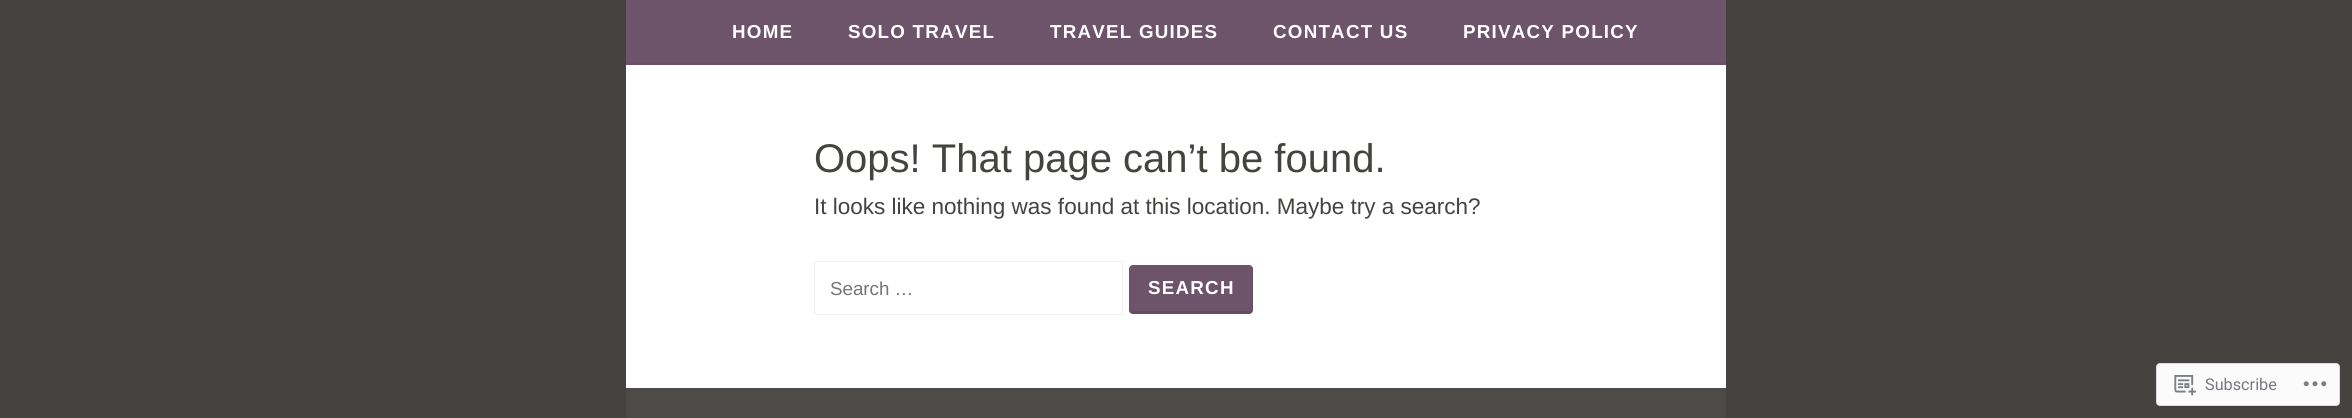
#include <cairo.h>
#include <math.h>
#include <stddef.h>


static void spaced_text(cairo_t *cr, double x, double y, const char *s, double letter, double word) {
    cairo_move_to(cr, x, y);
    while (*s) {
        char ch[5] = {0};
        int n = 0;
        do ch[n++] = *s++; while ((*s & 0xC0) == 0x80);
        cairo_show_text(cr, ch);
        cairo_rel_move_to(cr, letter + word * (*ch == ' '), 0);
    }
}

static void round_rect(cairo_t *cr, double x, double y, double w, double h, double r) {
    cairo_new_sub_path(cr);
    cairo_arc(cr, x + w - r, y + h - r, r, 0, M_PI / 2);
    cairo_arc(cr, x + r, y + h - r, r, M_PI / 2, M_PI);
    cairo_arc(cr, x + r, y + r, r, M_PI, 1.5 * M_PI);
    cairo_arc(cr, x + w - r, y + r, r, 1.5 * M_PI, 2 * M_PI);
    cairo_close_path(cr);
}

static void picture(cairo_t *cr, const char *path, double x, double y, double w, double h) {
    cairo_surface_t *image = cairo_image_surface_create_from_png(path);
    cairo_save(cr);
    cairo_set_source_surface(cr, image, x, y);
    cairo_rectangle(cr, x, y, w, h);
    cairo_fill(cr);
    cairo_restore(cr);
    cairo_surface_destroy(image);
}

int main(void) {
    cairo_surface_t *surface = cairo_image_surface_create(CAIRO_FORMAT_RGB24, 2352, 418);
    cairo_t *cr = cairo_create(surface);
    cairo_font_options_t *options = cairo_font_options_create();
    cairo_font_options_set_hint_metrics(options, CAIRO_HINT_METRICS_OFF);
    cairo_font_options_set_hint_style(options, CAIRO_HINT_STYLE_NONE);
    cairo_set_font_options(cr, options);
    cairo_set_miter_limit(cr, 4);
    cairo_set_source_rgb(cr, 0.267, 0.263, 0.251);
    cairo_paint(cr);
    cairo_set_source_rgb(cr, 0.427, 0.329, 0.416);
    cairo_rectangle(cr, 626, 0, 1100, 63);
    cairo_fill(cr);
    cairo_set_source_rgb(cr, 0.416, 0.318, 0.404);
    cairo_rectangle(cr, 626, 63, 1100, 2);
    cairo_fill(cr);
    cairo_select_font_face(cr, "Arimo", CAIRO_FONT_SLANT_NORMAL, CAIRO_FONT_WEIGHT_BOLD);
    cairo_set_font_size(cr, 18.75);
    cairo_set_source_rgb(cr, 1, 1, 1);
    spaced_text(cr, 732, 38, "HOME", 1.25, 0);
    spaced_text(cr, 848, 38, "SOLO TRAVEL", 1.25, 0);
    spaced_text(cr, 1050, 38, "TRAVEL GUIDES", 1.25, 0);
    spaced_text(cr, 1273, 38, "CONTACT US", 1.25, 0);
    spaced_text(cr, 1463, 38, "PRIVACY POLICY", 1.25, 0);
    cairo_rectangle(cr, 626, 65, 1100, 323);
    cairo_fill(cr);
    cairo_select_font_face(cr, "Arimo", CAIRO_FONT_SLANT_NORMAL, CAIRO_FONT_WEIGHT_NORMAL);
    cairo_set_font_size(cr, 40);
    cairo_set_source_rgb(cr, 0.267, 0.263, 0.251);
    cairo_move_to(cr, 814, 172);
    cairo_show_text(cr, "Oops! That page can’t be found.");
    cairo_set_font_size(cr, 22.5);
    cairo_move_to(cr, 814, 214);
    cairo_show_text(cr, "It looks like nothing was found at this location. Maybe try a search?");
    round_rect(cr, 814.5, 261.5, 308, 53, 2);
    cairo_set_source_rgb(cr, 0.933, 0.933, 0.933);
    cairo_set_line_width(cr, 1);
    cairo_stroke(cr);
    cairo_set_font_size(cr, 18.75);
    cairo_set_source_rgb(cr, 0.459, 0.459, 0.459);
    cairo_move_to(cr, 830, 295);
    cairo_show_text(cr, "Search …");
    cairo_set_source_rgb(cr, 0.427, 0.329, 0.416);
    round_rect(cr, 1129, 265, 124, 49, 4);
    cairo_fill(cr);
    cairo_set_source_rgba(cr, 0, 0, 0, 0.1);
    cairo_new_path(cr);
    cairo_move_to(cr, 1129, 308);
    cairo_line_to(cr, 1129, 310);
    cairo_curve_to(cr, 1129, 312, 1131, 314, 1133, 314);
    cairo_line_to(cr, 1249, 314);
    cairo_curve_to(cr, 1251, 314, 1253, 312, 1253, 310);
    cairo_line_to(cr, 1253, 269);
    cairo_curve_to(cr, 1253, 268, 1253, 267, 1252, 266);
    cairo_line_to(cr, 1252, 308);
    cairo_curve_to(cr, 1252, 310, 1251, 311, 1249, 311);
    cairo_line_to(cr, 1132, 311);
    cairo_curve_to(cr, 1130, 311, 1129, 310, 1129, 308);
    cairo_close_path(cr);
    cairo_fill(cr);
    cairo_select_font_face(cr, "Arimo", CAIRO_FONT_SLANT_NORMAL, CAIRO_FONT_WEIGHT_BOLD);
    cairo_set_source_rgb(cr, 1, 1, 1);
    spaced_text(cr, 1148, 294, "SEARCH", 1.25, 0);
    cairo_set_source_rgb(cr, 0.298, 0.294, 0.278);
    cairo_rectangle(cr, 626, 388, 1100, 30);
    cairo_fill(cr);
    cairo_set_source_rgb(cr, 0.984, 0.984, 0.984);
    round_rect(cr, 2156.5, 363.5, 183, 42, 3.5);
    cairo_fill_preserve(cr);
    cairo_set_source_rgb(cr, 0.851, 0.851, 0.859);
    cairo_stroke(cr);
    picture(cr, "img1.png", 2174, 375, 22, 21);
    cairo_select_font_face(cr, "Roboto", CAIRO_FONT_SLANT_NORMAL, CAIRO_FONT_WEIGHT_NORMAL);
    cairo_set_font_size(cr, 16.25);
    cairo_set_source_rgb(cr, 0.467, 0.482, 0.506);
    cairo_move_to(cr, 2205, 390);
    cairo_show_text(cr, "Subscribe");
    picture(cr, "img2.png", 2303, 381, 24, 6);
    cairo_surface_write_to_png(surface, "page.png");
    cairo_font_options_destroy(options);
    cairo_destroy(cr);
    cairo_surface_destroy(surface);
    return 0;
}
